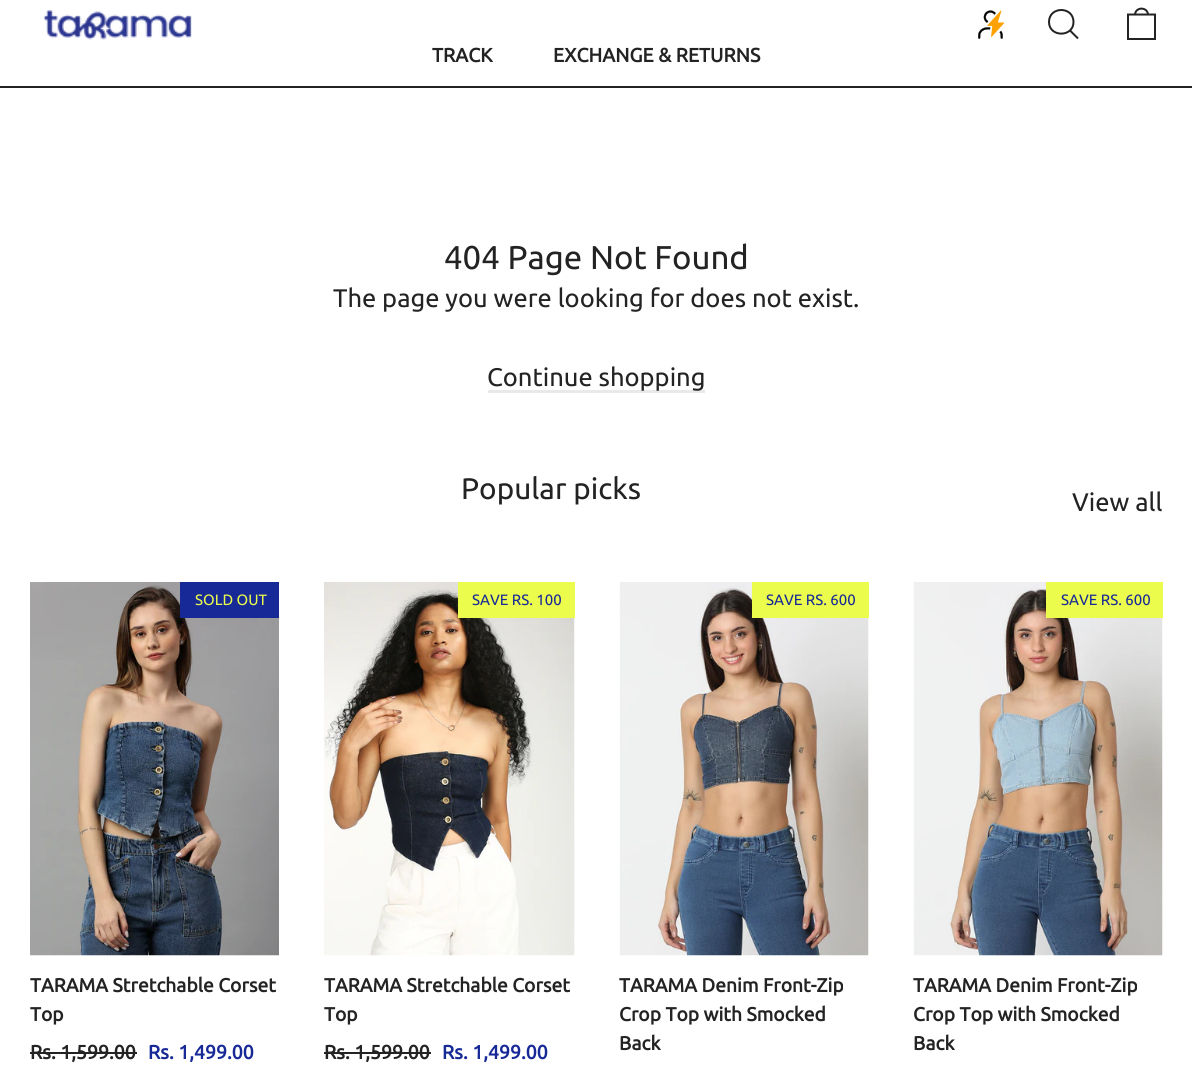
#include <cairo.h>
#include <math.h>
#include <stddef.h>


static void picture(cairo_t *cr, const char *path, double x, double y, double w, double h) {
    cairo_surface_t *image = cairo_image_surface_create_from_png(path);
    cairo_save(cr);
    cairo_set_source_surface(cr, image, x, y);
    cairo_rectangle(cr, x, y, w, h);
    cairo_fill(cr);
    cairo_restore(cr);
    cairo_surface_destroy(image);
}

int main(void) {
    cairo_surface_t *surface = cairo_image_surface_create(CAIRO_FORMAT_RGB24, 1192, 1079);
    cairo_t *cr = cairo_create(surface);
    cairo_font_options_t *options = cairo_font_options_create();
    cairo_font_options_set_hint_metrics(options, CAIRO_HINT_METRICS_OFF);
    cairo_font_options_set_hint_style(options, CAIRO_HINT_STYLE_NONE);
    cairo_set_font_options(cr, options);
    cairo_set_miter_limit(cr, 4);
    cairo_set_source_rgb(cr, 1, 1, 1);
    cairo_paint(cr);
    cairo_set_source_rgb(cr, 0.137, 0.137, 0.137);
    cairo_rectangle(cr, 0, 86, 1192, 2);
    cairo_fill(cr);
    picture(cr, "img1.png", 44, 10, 148, 30);
    picture(cr, "img2.png", 978, 10, 27, 29);
    cairo_new_path(cr);
    cairo_move_to(cr, 1073.5, 22);
    cairo_curve_to(cr, 1073.5, 37.5, 1049, 37.5, 1049, 22);
    cairo_curve_to(cr, 1049, 6, 1073.5, 6, 1073.5, 22);
    cairo_close_path(cr);
    cairo_move_to(cr, 1078, 38.5);
    cairo_line_to(cr, 1070, 30.5);
    cairo_stroke(cr);
    cairo_new_path(cr);
    cairo_move_to(cr, 1128, 14.5);
    cairo_line_to(cr, 1155, 14.5);
    cairo_line_to(cr, 1155, 39);
    cairo_line_to(cr, 1128, 39);
    cairo_close_path(cr);
    cairo_move_to(cr, 1135, 15);
    cairo_curve_to(cr, 1135, 6.5, 1148, 6.5, 1148, 15);
    cairo_stroke(cr);
    cairo_new_path(cr);
    cairo_move_to(cr, 382, -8);
    cairo_line_to(cr, 388.5, -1);
    cairo_line_to(cr, 395.5, -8);
    cairo_set_line_width(cr, 1.6);
    cairo_stroke(cr);
    cairo_select_font_face(cr, "Ubuntu", CAIRO_FONT_SLANT_NORMAL, CAIRO_FONT_WEIGHT_BOLD);
    cairo_set_font_size(cr, 19.5);
    cairo_move_to(cr, 432, 62);
    cairo_show_text(cr, "TRACK");
    cairo_move_to(cr, 553, 62);
    cairo_show_text(cr, "EXCHANGE & RETURNS");
    cairo_select_font_face(cr, "Ubuntu", CAIRO_FONT_SLANT_NORMAL, CAIRO_FONT_WEIGHT_NORMAL);
    cairo_set_font_size(cr, 33);
    cairo_move_to(cr, 444, 269);
    cairo_show_text(cr, "404 Page Not Found");
    cairo_set_font_size(cr, 25.5);
    cairo_move_to(cr, 333, 307);
    cairo_show_text(cr, "The page you were looking for does not exist.");
    cairo_set_source_rgb(cr, 0.914, 0.914, 0.914);
    cairo_rectangle(cr, 488, 390, 217, 3);
    cairo_fill(cr);
    cairo_set_source_rgb(cr, 0.137, 0.137, 0.137);
    cairo_move_to(cr, 487, 386);
    cairo_show_text(cr, "Continue shopping");
    cairo_set_font_size(cr, 29.75);
    cairo_move_to(cr, 461, 499);
    cairo_show_text(cr, "Popular picks");
    cairo_set_font_size(cr, 25.5);
    cairo_move_to(cr, 1072, 511);
    cairo_show_text(cr, "View all");
    picture(cr, "img3.png", 30, 582, 249, 374);
    cairo_set_source_rgb(cr, 0.09, 0.161, 0.592);
    cairo_rectangle(cr, 180, 582, 99, 36);
    cairo_fill(cr);
    cairo_set_font_size(cr, 15);
    cairo_set_source_rgb(cr, 0.922, 0.988, 0.298);
    cairo_move_to(cr, 195, 605);
    cairo_show_text(cr, "SOLD OUT");
    cairo_select_font_face(cr, "Ubuntu", CAIRO_FONT_SLANT_NORMAL, CAIRO_FONT_WEIGHT_BOLD);
    cairo_set_font_size(cr, 19.25);
    cairo_set_source_rgb(cr, 0.137, 0.137, 0.137);
    cairo_move_to(cr, 30, 992);
    cairo_show_text(cr, "TARAMA Stretchable Corset");
    cairo_move_to(cr, 30, 1021);
    cairo_show_text(cr, "Top");
    cairo_set_font_size(cr, 19.5);
    cairo_move_to(cr, 30, 1059);
    cairo_show_text(cr, "Rs. 1,599.00");
    cairo_rectangle(cr, 30, 1052, 107, 2);
    cairo_fill(cr);
    cairo_set_source_rgb(cr, 0.09, 0.161, 0.592);
    cairo_move_to(cr, 148, 1059);
    cairo_show_text(cr, "Rs. 1,499.00");
    picture(cr, "img4.png", 324, 582, 251, 374);
    cairo_set_source_rgb(cr, 0.922, 0.988, 0.298);
    cairo_rectangle(cr, 458, 582, 117, 36);
    cairo_fill(cr);
    cairo_select_font_face(cr, "Ubuntu", CAIRO_FONT_SLANT_NORMAL, CAIRO_FONT_WEIGHT_NORMAL);
    cairo_set_font_size(cr, 15);
    cairo_set_source_rgb(cr, 0.09, 0.161, 0.592);
    cairo_move_to(cr, 472, 605);
    cairo_show_text(cr, "SAVE RS. 100");
    cairo_select_font_face(cr, "Ubuntu", CAIRO_FONT_SLANT_NORMAL, CAIRO_FONT_WEIGHT_BOLD);
    cairo_set_font_size(cr, 19.25);
    cairo_set_source_rgb(cr, 0.137, 0.137, 0.137);
    cairo_move_to(cr, 324, 992);
    cairo_show_text(cr, "TARAMA Stretchable Corset");
    cairo_move_to(cr, 324, 1021);
    cairo_show_text(cr, "Top");
    cairo_set_font_size(cr, 19.5);
    cairo_move_to(cr, 324, 1059);
    cairo_show_text(cr, "Rs. 1,599.00");
    cairo_rectangle(cr, 324, 1052, 107, 2);
    cairo_fill(cr);
    cairo_set_source_rgb(cr, 0.09, 0.161, 0.592);
    cairo_move_to(cr, 442, 1059);
    cairo_show_text(cr, "Rs. 1,499.00");
    picture(cr, "img5.png", 619, 582, 250, 374);
    cairo_set_source_rgb(cr, 0.922, 0.988, 0.298);
    cairo_rectangle(cr, 752, 582, 117, 36);
    cairo_fill(cr);
    cairo_select_font_face(cr, "Ubuntu", CAIRO_FONT_SLANT_NORMAL, CAIRO_FONT_WEIGHT_NORMAL);
    cairo_set_font_size(cr, 15);
    cairo_set_source_rgb(cr, 0.09, 0.161, 0.592);
    cairo_move_to(cr, 766, 605);
    cairo_show_text(cr, "SAVE RS. 600");
    cairo_select_font_face(cr, "Ubuntu", CAIRO_FONT_SLANT_NORMAL, CAIRO_FONT_WEIGHT_BOLD);
    cairo_set_font_size(cr, 19.25);
    cairo_set_source_rgb(cr, 0.137, 0.137, 0.137);
    cairo_move_to(cr, 619, 992);
    cairo_show_text(cr, "TARAMA Denim Front-Zip");
    cairo_move_to(cr, 619, 1021);
    cairo_show_text(cr, "Crop Top with Smocked");
    cairo_move_to(cr, 619, 1050);
    cairo_show_text(cr, "Back");
    picture(cr, "img6.png", 913, 582, 250, 374);
    cairo_set_source_rgb(cr, 0.922, 0.988, 0.298);
    cairo_rectangle(cr, 1046, 582, 117, 36);
    cairo_fill(cr);
    cairo_select_font_face(cr, "Ubuntu", CAIRO_FONT_SLANT_NORMAL, CAIRO_FONT_WEIGHT_NORMAL);
    cairo_set_font_size(cr, 15);
    cairo_set_source_rgb(cr, 0.09, 0.161, 0.592);
    cairo_move_to(cr, 1061, 605);
    cairo_show_text(cr, "SAVE RS. 600");
    cairo_select_font_face(cr, "Ubuntu", CAIRO_FONT_SLANT_NORMAL, CAIRO_FONT_WEIGHT_BOLD);
    cairo_set_font_size(cr, 19.25);
    cairo_set_source_rgb(cr, 0.137, 0.137, 0.137);
    cairo_move_to(cr, 913, 992);
    cairo_show_text(cr, "TARAMA Denim Front-Zip");
    cairo_move_to(cr, 913, 1021);
    cairo_show_text(cr, "Crop Top with Smocked");
    cairo_move_to(cr, 913, 1050);
    cairo_show_text(cr, "Back");
    cairo_surface_write_to_png(surface, "page.png");
    cairo_font_options_destroy(options);
    cairo_destroy(cr);
    cairo_surface_destroy(surface);
    return 0;
}
